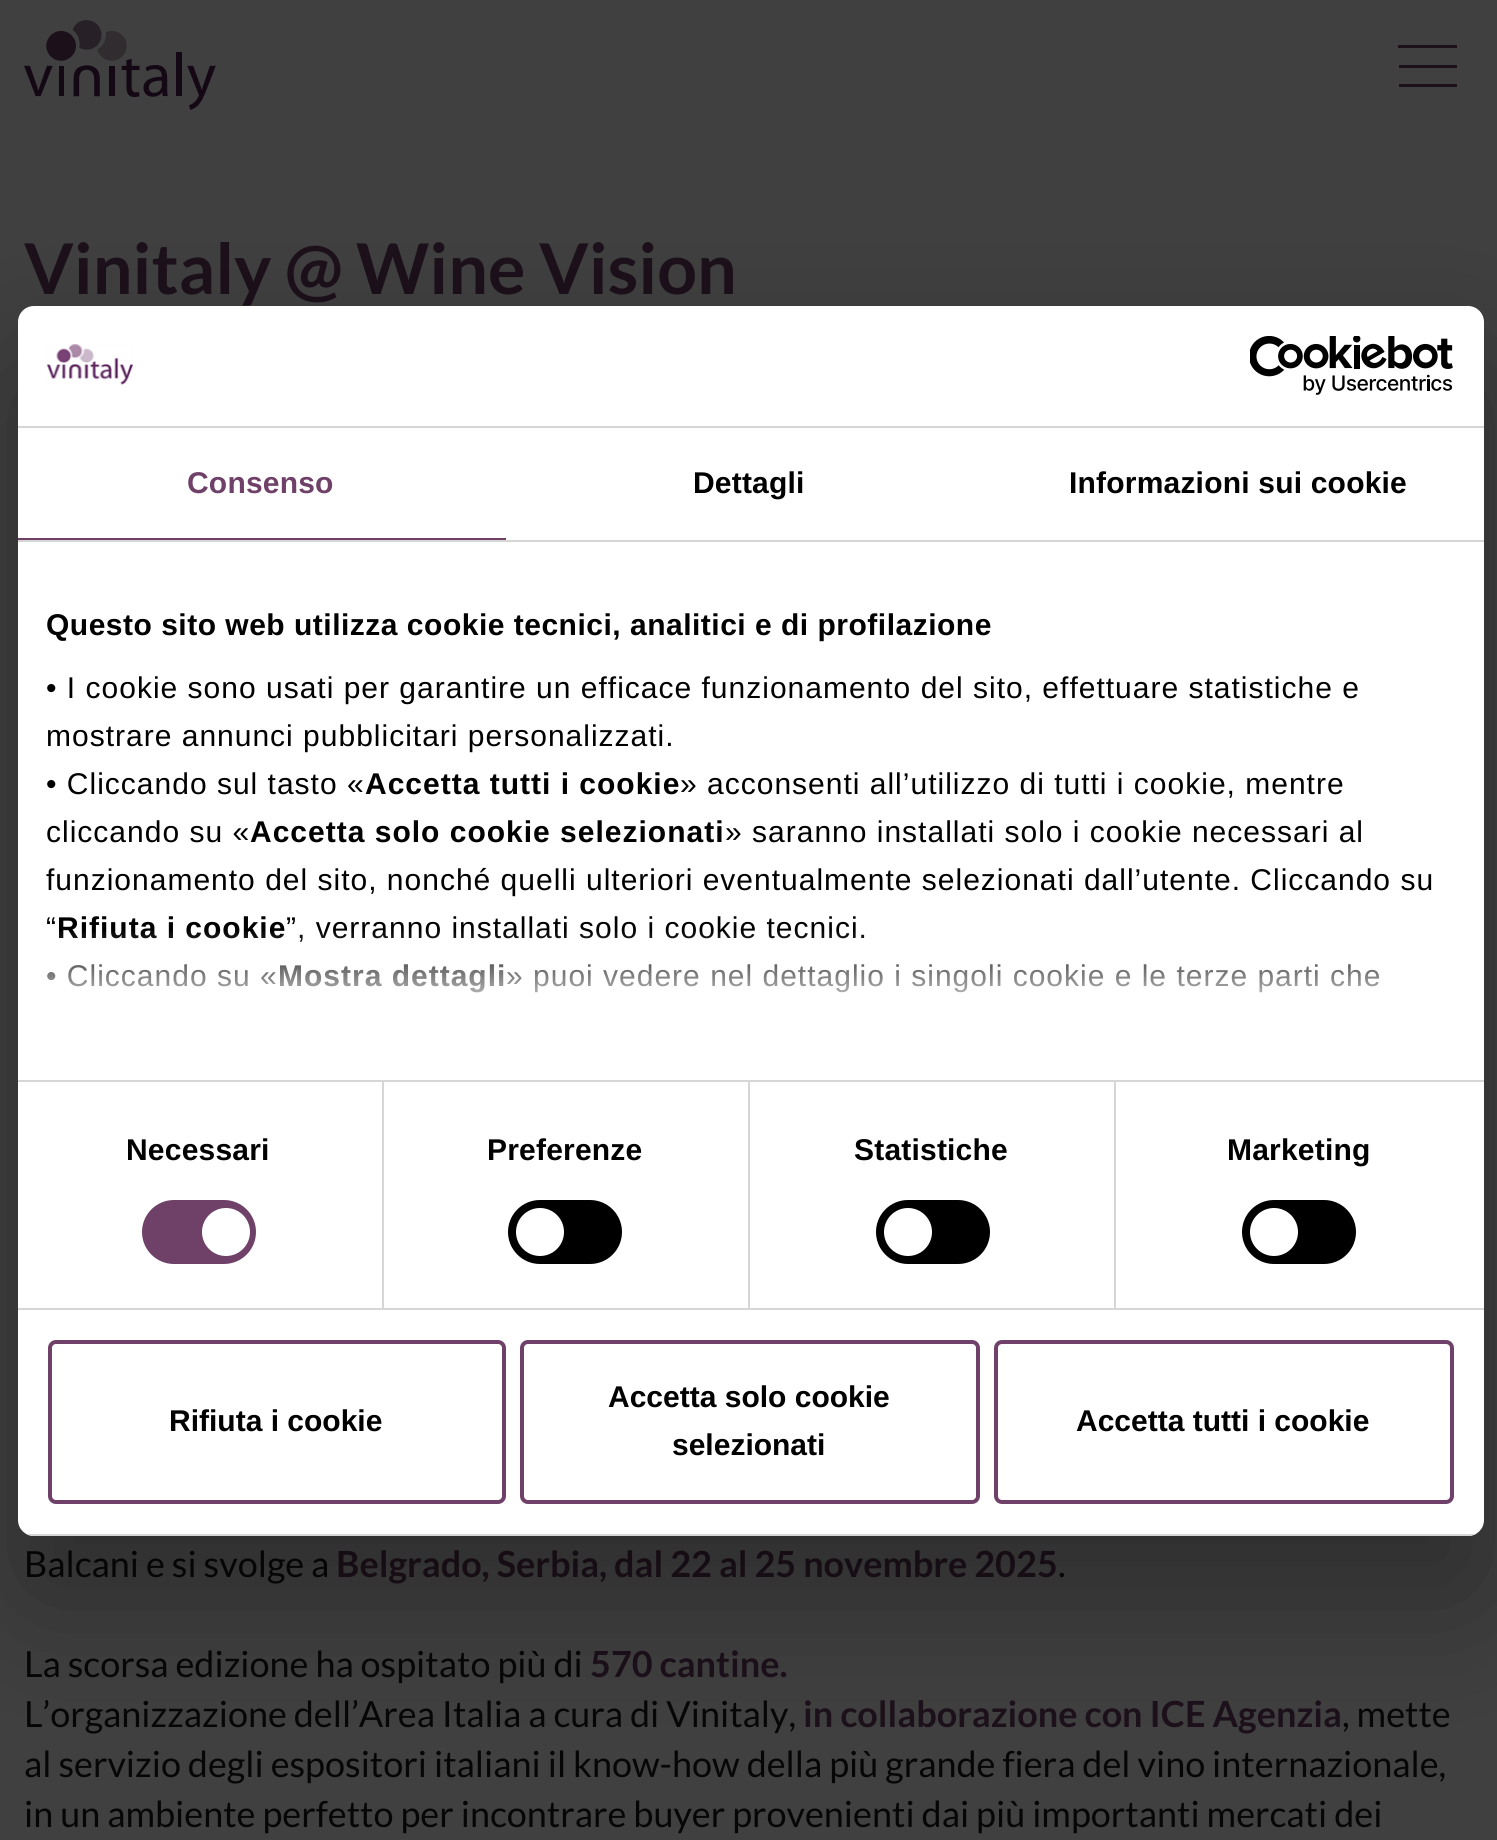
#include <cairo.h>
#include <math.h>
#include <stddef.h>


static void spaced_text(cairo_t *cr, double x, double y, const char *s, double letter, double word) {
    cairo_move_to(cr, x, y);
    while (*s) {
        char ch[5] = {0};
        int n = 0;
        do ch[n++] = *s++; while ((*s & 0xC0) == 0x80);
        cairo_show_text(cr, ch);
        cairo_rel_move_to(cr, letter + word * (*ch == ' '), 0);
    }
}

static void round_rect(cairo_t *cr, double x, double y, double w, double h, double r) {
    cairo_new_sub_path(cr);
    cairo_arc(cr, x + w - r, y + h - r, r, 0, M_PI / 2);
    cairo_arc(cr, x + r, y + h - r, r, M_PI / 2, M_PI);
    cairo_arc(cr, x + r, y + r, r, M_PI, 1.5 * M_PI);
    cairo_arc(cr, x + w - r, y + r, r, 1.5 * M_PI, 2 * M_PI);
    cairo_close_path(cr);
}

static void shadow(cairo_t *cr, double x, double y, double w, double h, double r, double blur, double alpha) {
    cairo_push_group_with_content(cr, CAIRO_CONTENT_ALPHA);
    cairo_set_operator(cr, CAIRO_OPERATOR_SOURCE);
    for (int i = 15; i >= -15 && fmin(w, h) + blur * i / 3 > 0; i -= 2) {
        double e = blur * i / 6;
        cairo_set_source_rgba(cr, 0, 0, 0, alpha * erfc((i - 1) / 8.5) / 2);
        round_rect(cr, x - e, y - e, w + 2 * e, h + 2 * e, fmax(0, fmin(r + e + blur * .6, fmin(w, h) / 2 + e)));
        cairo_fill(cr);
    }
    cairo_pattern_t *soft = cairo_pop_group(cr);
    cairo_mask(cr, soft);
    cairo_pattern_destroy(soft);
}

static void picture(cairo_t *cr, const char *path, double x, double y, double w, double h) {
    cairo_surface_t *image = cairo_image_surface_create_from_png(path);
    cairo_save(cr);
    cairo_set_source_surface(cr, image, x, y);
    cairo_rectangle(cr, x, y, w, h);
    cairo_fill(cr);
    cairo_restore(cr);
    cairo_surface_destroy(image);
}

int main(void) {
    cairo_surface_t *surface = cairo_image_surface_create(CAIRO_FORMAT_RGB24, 1497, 1840);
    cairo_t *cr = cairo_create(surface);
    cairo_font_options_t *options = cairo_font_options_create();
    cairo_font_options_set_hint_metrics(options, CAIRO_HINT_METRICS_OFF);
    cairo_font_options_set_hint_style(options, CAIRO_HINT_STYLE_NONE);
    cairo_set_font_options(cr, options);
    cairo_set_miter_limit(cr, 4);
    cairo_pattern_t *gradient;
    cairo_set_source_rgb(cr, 0.251, 0.251, 0.251);
    cairo_paint(cr);
    picture(cr, "img1.png", 24, 20, 192, 90);
    cairo_set_source_rgb(cr, 0.11, 0.063, 0.102);
    cairo_rectangle(cr, 1398, 45, 59, 3);
    cairo_fill(cr);
    cairo_rectangle(cr, 1399, 84, 58, 3);
    cairo_fill(cr);
    cairo_rectangle(cr, 1399, 65, 58, 3);
    cairo_fill(cr);
    cairo_select_font_face(cr, "Lato", CAIRO_FONT_SLANT_NORMAL, CAIRO_FONT_WEIGHT_BOLD);
    cairo_set_font_size(cr, 70);
    cairo_move_to(cr, 24, 294);
    cairo_show_text(cr, "Vinitaly @ Wine Vision");
    cairo_select_font_face(cr, "Lato", CAIRO_FONT_SLANT_NORMAL, CAIRO_FONT_WEIGHT_NORMAL);
    cairo_set_font_size(cr, 36);
    cairo_set_source_rgb(cr, 0.027, 0.027, 0.027);
    cairo_move_to(cr, 24, 1577);
    cairo_show_text(cr, "Balcani e si svolge a");
    cairo_select_font_face(cr, "Lato", CAIRO_FONT_SLANT_NORMAL, CAIRO_FONT_WEIGHT_BOLD);
    cairo_set_source_rgb(cr, 0.11, 0.063, 0.102);
    cairo_move_to(cr, 336, 1577);
    cairo_show_text(cr, "Belgrado, Serbia, dal 22 al 25 novembre 2025");
    cairo_select_font_face(cr, "Lato", CAIRO_FONT_SLANT_NORMAL, CAIRO_FONT_WEIGHT_NORMAL);
    cairo_set_source_rgb(cr, 0.027, 0.027, 0.027);
    cairo_move_to(cr, 1058, 1577);
    cairo_show_text(cr, ".");
    cairo_move_to(cr, 24, 1677);
    cairo_show_text(cr, "La scorsa edizione ha ospitato più di");
    cairo_select_font_face(cr, "Lato", CAIRO_FONT_SLANT_NORMAL, CAIRO_FONT_WEIGHT_BOLD);
    cairo_set_source_rgb(cr, 0.11, 0.063, 0.102);
    cairo_move_to(cr, 590, 1677);
    cairo_show_text(cr, "570 cantine.");
    cairo_select_font_face(cr, "Lato", CAIRO_FONT_SLANT_NORMAL, CAIRO_FONT_WEIGHT_NORMAL);
    cairo_set_source_rgb(cr, 0.027, 0.027, 0.027);
    cairo_move_to(cr, 24, 1727);
    cairo_show_text(cr, "L’organizzazione dell’Area Italia a cura di Vinitaly,");
    cairo_select_font_face(cr, "Lato", CAIRO_FONT_SLANT_NORMAL, CAIRO_FONT_WEIGHT_BOLD);
    cairo_set_source_rgb(cr, 0.11, 0.063, 0.102);
    cairo_move_to(cr, 803, 1727);
    cairo_show_text(cr, "in collaborazione con ICE Agenzia");
    cairo_select_font_face(cr, "Lato", CAIRO_FONT_SLANT_NORMAL, CAIRO_FONT_WEIGHT_NORMAL);
    cairo_set_source_rgb(cr, 0.027, 0.027, 0.027);
    cairo_move_to(cr, 1342, 1727);
    cairo_show_text(cr, ", mette");
    cairo_move_to(cr, 24, 1777);
    cairo_show_text(cr, "al servizio degli espositori italiani il know-how della più grande fiera del vino internazionale,");
    cairo_move_to(cr, 24, 1827);
    cairo_show_text(cr, "in un ambiente perfetto per incontrare buyer provenienti dai più importanti mercati dei");
    cairo_set_source_rgb(cr, 0, 0, 0);
    shadow(cr, 18, 370, 1466, 1230, 16, 68, 0.3);
    cairo_set_source_rgb(cr, 1, 1, 1);
    round_rect(cr, 18, 306, 1466, 1230, 16);
    cairo_fill(cr);
    cairo_set_source_rgb(cr, 0.839, 0.839, 0.839);
    cairo_rectangle(cr, 18, 426, 1466, 2);
    cairo_fill(cr);
    picture(cr, "img2.png", 46, 344, 87, 41);
    picture(cr, "img3.png", 1250, 336, 203, 59);
    cairo_rectangle(cr, 18, 540, 1466, 2);
    cairo_fill(cr);
    cairo_set_source_rgb(cr, 0.435, 0.255, 0.412);
    cairo_rectangle(cr, 18, 538, 488, 2);
    cairo_fill(cr);
    cairo_select_font_face(cr, "Liberation Sans", CAIRO_FONT_SLANT_NORMAL, CAIRO_FONT_WEIGHT_BOLD);
    cairo_set_font_size(cr, 30);
    spaced_text(cr, 187, 493, "Consenso", 0.2, 0);
    cairo_set_source_rgb(cr, 0, 0, 0);
    spaced_text(cr, 693, 493, "Dettagli", 0.2, 0);
    spaced_text(cr, 1069, 493, "Informazioni sui cookie", 0.2, 0);
    cairo_set_source_rgb(cr, 0.839, 0.839, 0.839);
    cairo_rectangle(cr, 18, 1080, 1466, 2);
    cairo_fill(cr);
    cairo_set_source_rgb(cr, 0, 0, 0);
    spaced_text(cr, 46, 635, "Questo sito web utilizza cookie tecnici, analitici e di profilazione", 0.5, 0);
    cairo_select_font_face(cr, "Liberation Sans", CAIRO_FONT_SLANT_NORMAL, CAIRO_FONT_WEIGHT_NORMAL);
    spaced_text(cr, 46, 698, "• I cookie sono usati per garantire un efficace funzionamento del sito, effettuare statistiche e", 1, 0);
    spaced_text(cr, 46, 746, "mostrare annunci pubblicitari personalizzati.", 1, 0);
    spaced_text(cr, 46, 794, "• Cliccando sul tasto «", 1, 0);
    cairo_select_font_face(cr, "Liberation Sans", CAIRO_FONT_SLANT_NORMAL, CAIRO_FONT_WEIGHT_BOLD);
    spaced_text(cr, 365, 794, "Accetta tutti i cookie", 1, 0);
    cairo_select_font_face(cr, "Liberation Sans", CAIRO_FONT_SLANT_NORMAL, CAIRO_FONT_WEIGHT_NORMAL);
    spaced_text(cr, 680, 794, "» acconsenti all’utilizzo di tutti i cookie, mentre", 1, 0);
    spaced_text(cr, 46, 842, "cliccando su «", 1, 0);
    cairo_select_font_face(cr, "Liberation Sans", CAIRO_FONT_SLANT_NORMAL, CAIRO_FONT_WEIGHT_BOLD);
    spaced_text(cr, 250, 842, "Accetta solo cookie selezionati", 1, 0);
    cairo_select_font_face(cr, "Liberation Sans", CAIRO_FONT_SLANT_NORMAL, CAIRO_FONT_WEIGHT_NORMAL);
    spaced_text(cr, 725, 842, "» saranno installati solo i cookie necessari al", 1, 0);
    spaced_text(cr, 46, 890, "funzionamento del sito, nonché quelli ulteriori eventualmente selezionati dall’utente. Cliccando su", 1, 0);
    spaced_text(cr, 46, 938, "“", 1, 0);
    cairo_select_font_face(cr, "Liberation Sans", CAIRO_FONT_SLANT_NORMAL, CAIRO_FONT_WEIGHT_BOLD);
    spaced_text(cr, 57, 938, "Rifiuta i cookie", 1, 0);
    cairo_select_font_face(cr, "Liberation Sans", CAIRO_FONT_SLANT_NORMAL, CAIRO_FONT_WEIGHT_NORMAL);
    spaced_text(cr, 286, 938, "”, verranno installati solo i cookie tecnici.", 1, 0);
    spaced_text(cr, 46, 986, "• Cliccando su «", 1, 0);
    cairo_select_font_face(cr, "Liberation Sans", CAIRO_FONT_SLANT_NORMAL, CAIRO_FONT_WEIGHT_BOLD);
    spaced_text(cr, 278, 986, "Mostra dettagli", 1, 0);
    cairo_select_font_face(cr, "Liberation Sans", CAIRO_FONT_SLANT_NORMAL, CAIRO_FONT_WEIGHT_NORMAL);
    spaced_text(cr, 506, 986, "» puoi vedere nel dettaglio i singoli cookie e le terze parti che", 1, 0);
    gradient = cairo_pattern_create_linear(737, 1079, 737, 929);
    cairo_pattern_add_color_stop_rgba(gradient, 0, 1, 1, 1, 1);
    cairo_pattern_add_color_stop_rgba(gradient, 0.5, 1, 1, 1, 0.8);
    cairo_pattern_add_color_stop_rgba(gradient, 1, 1, 1, 1, 0);
    cairo_set_source(cr, gradient);
    cairo_pattern_destroy(gradient);
    cairo_rectangle(cr, 47, 931, 1333, 62);
    cairo_fill(cr);
    cairo_set_source_rgb(cr, 0.839, 0.839, 0.839);
    cairo_rectangle(cr, 18, 1308, 1466, 2);
    cairo_fill(cr);
    cairo_rectangle(cr, 382, 1082, 2, 226);
    cairo_fill(cr);
    cairo_select_font_face(cr, "Liberation Sans", CAIRO_FONT_SLANT_NORMAL, CAIRO_FONT_WEIGHT_BOLD);
    cairo_set_source_rgb(cr, 0, 0, 0);
    spaced_text(cr, 126, 1160, "Necessari", 0.2, 0);
    cairo_set_source_rgb(cr, 0.435, 0.255, 0.412);
    round_rect(cr, 142, 1200, 114, 64, 32);
    cairo_fill(cr);
    cairo_set_source_rgb(cr, 1, 1, 1);
    cairo_arc(cr, 226, 1232, 24, 0, 2 * M_PI);
    cairo_fill(cr);
    cairo_set_source_rgb(cr, 0.839, 0.839, 0.839);
    cairo_rectangle(cr, 748, 1082, 2, 226);
    cairo_fill(cr);
    cairo_set_source_rgb(cr, 0, 0, 0);
    spaced_text(cr, 487, 1160, "Preferenze", 0.2, 0);
    round_rect(cr, 508, 1200, 114, 64, 32);
    cairo_fill(cr);
    cairo_set_source_rgb(cr, 1, 1, 1);
    cairo_arc(cr, 540, 1232, 24, 0, 2 * M_PI);
    cairo_fill(cr);
    cairo_set_source_rgb(cr, 0.839, 0.839, 0.839);
    cairo_rectangle(cr, 1114, 1082, 2, 226);
    cairo_fill(cr);
    cairo_set_source_rgb(cr, 0, 0, 0);
    spaced_text(cr, 854, 1160, "Statistiche", 0.2, 0);
    round_rect(cr, 876, 1200, 114, 64, 32);
    cairo_fill(cr);
    cairo_set_source_rgb(cr, 1, 1, 1);
    cairo_arc(cr, 908, 1232, 24, 0, 2 * M_PI);
    cairo_fill(cr);
    cairo_set_source_rgb(cr, 0, 0, 0);
    spaced_text(cr, 1227, 1160, "Marketing", 0.2, 0);
    round_rect(cr, 1242, 1200, 114, 64, 32);
    cairo_fill(cr);
    cairo_set_source_rgb(cr, 1, 1, 1);
    cairo_arc(cr, 1274, 1232, 24, 0, 2 * M_PI);
    cairo_fill(cr);
    cairo_save(cr);
    round_rect(cr, 18, 306, 1466, 1230, 16);
    cairo_clip(cr);
    cairo_set_source_rgb(cr, 0.839, 0.839, 0.839);
    cairo_rectangle(cr, 18, 1534, 1466, 2);
    cairo_fill(cr);
    cairo_restore(cr);
    round_rect(cr, 50, 1342, 454, 160, 6);
    cairo_set_source_rgb(cr, 0.435, 0.255, 0.412);
    cairo_set_line_width(cr, 4);
    cairo_stroke(cr);
    cairo_set_source_rgb(cr, 0, 0, 0);
    cairo_move_to(cr, 169, 1431);
    cairo_show_text(cr, "Rifiuta i cookie");
    round_rect(cr, 522, 1342, 456, 160, 6);
    cairo_set_source_rgb(cr, 0.435, 0.255, 0.412);
    cairo_stroke(cr);
    cairo_set_source_rgb(cr, 0, 0, 0);
    cairo_move_to(cr, 608, 1407);
    cairo_show_text(cr, "Accetta solo cookie");
    cairo_move_to(cr, 672, 1455);
    cairo_show_text(cr, "selezionati");
    round_rect(cr, 996, 1342, 456, 160, 6);
    cairo_set_source_rgb(cr, 0.435, 0.255, 0.412);
    cairo_stroke(cr);
    cairo_set_source_rgb(cr, 0, 0, 0);
    cairo_move_to(cr, 1076, 1431);
    cairo_show_text(cr, "Accetta tutti i cookie");
    cairo_surface_write_to_png(surface, "page.png");
    cairo_font_options_destroy(options);
    cairo_destroy(cr);
    cairo_surface_destroy(surface);
    return 0;
}
